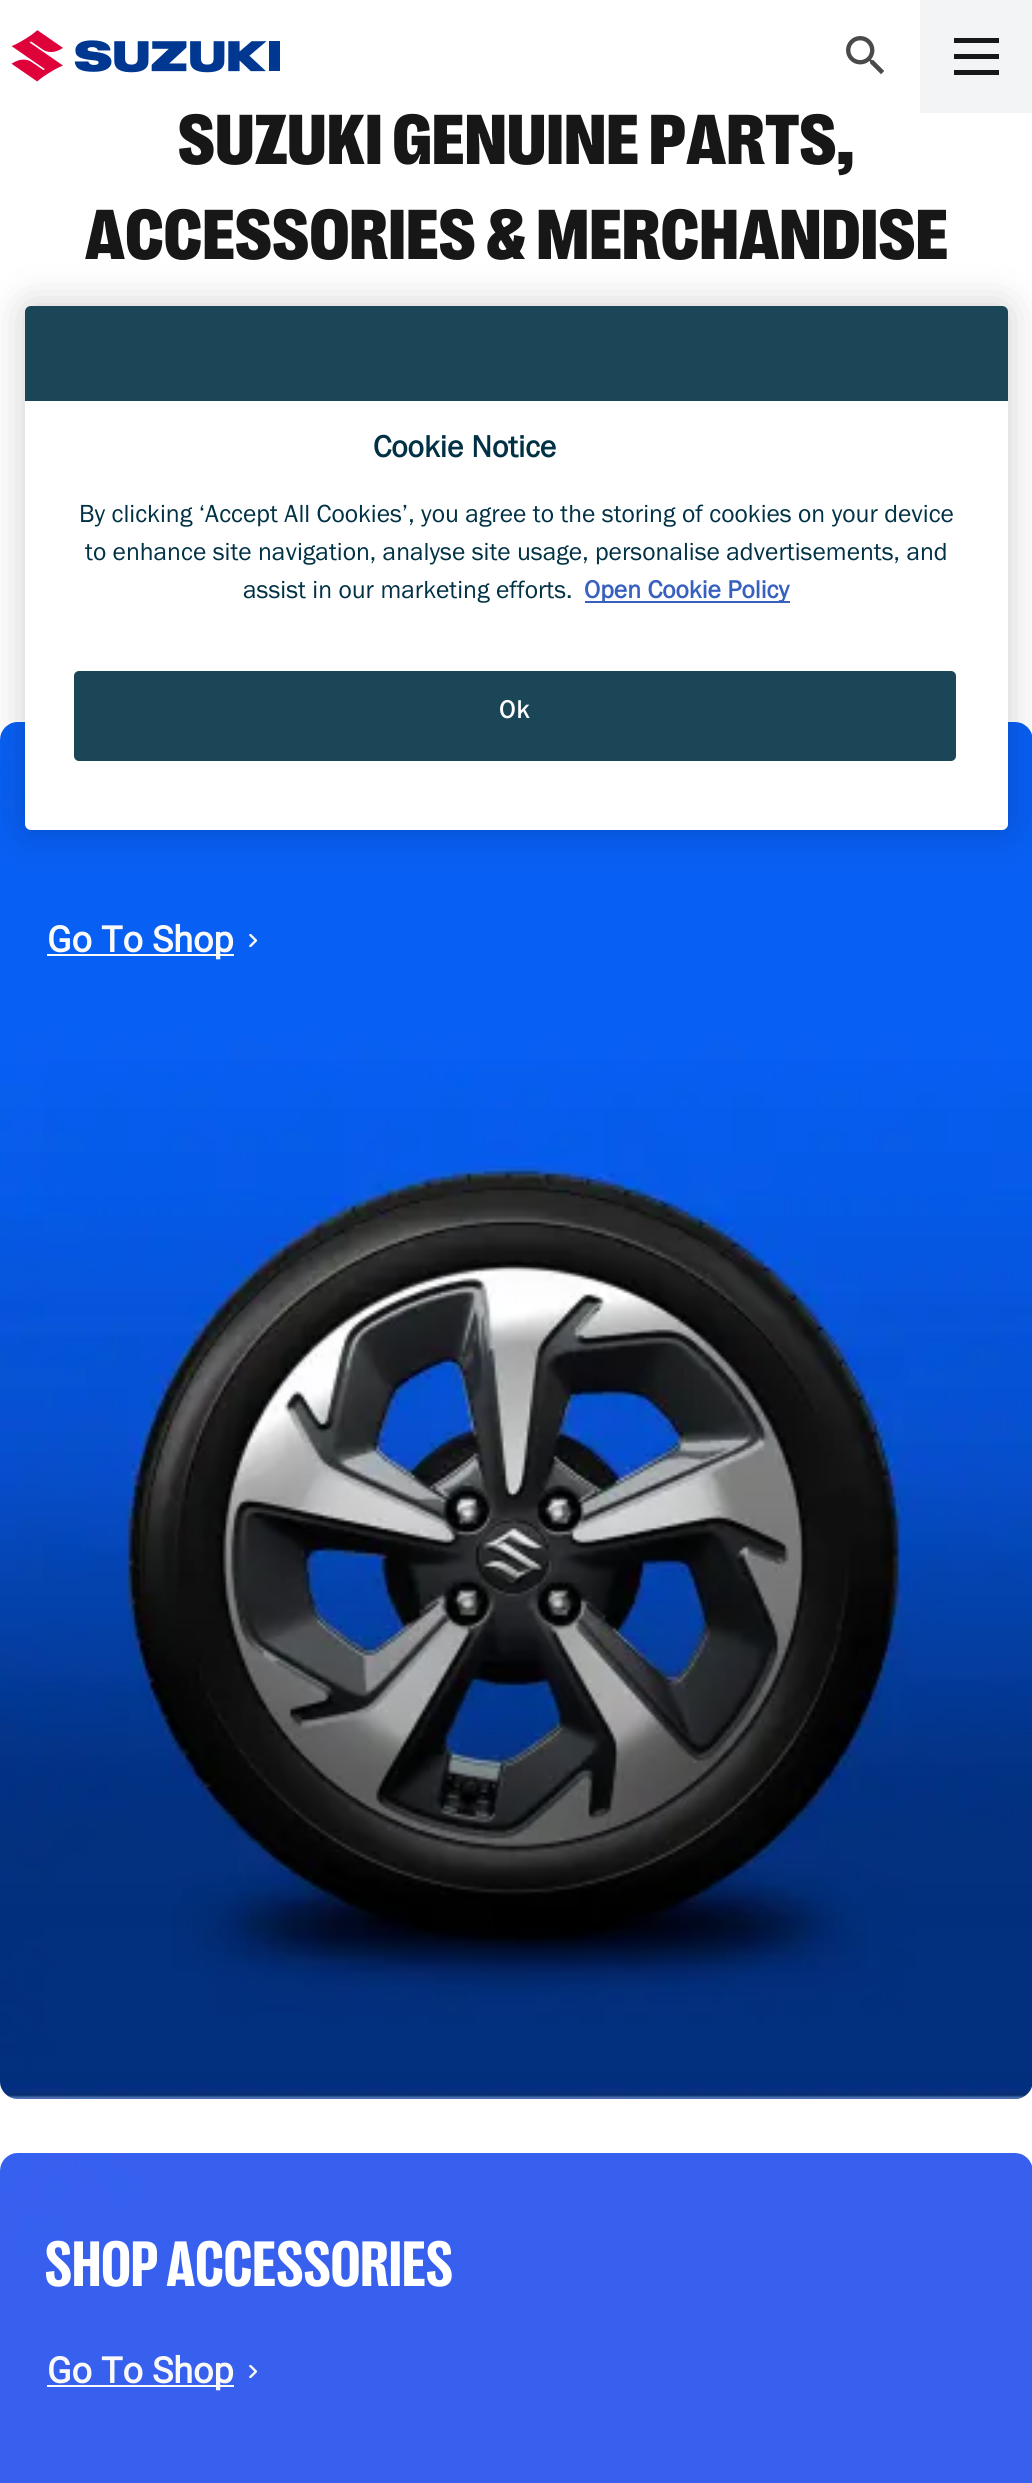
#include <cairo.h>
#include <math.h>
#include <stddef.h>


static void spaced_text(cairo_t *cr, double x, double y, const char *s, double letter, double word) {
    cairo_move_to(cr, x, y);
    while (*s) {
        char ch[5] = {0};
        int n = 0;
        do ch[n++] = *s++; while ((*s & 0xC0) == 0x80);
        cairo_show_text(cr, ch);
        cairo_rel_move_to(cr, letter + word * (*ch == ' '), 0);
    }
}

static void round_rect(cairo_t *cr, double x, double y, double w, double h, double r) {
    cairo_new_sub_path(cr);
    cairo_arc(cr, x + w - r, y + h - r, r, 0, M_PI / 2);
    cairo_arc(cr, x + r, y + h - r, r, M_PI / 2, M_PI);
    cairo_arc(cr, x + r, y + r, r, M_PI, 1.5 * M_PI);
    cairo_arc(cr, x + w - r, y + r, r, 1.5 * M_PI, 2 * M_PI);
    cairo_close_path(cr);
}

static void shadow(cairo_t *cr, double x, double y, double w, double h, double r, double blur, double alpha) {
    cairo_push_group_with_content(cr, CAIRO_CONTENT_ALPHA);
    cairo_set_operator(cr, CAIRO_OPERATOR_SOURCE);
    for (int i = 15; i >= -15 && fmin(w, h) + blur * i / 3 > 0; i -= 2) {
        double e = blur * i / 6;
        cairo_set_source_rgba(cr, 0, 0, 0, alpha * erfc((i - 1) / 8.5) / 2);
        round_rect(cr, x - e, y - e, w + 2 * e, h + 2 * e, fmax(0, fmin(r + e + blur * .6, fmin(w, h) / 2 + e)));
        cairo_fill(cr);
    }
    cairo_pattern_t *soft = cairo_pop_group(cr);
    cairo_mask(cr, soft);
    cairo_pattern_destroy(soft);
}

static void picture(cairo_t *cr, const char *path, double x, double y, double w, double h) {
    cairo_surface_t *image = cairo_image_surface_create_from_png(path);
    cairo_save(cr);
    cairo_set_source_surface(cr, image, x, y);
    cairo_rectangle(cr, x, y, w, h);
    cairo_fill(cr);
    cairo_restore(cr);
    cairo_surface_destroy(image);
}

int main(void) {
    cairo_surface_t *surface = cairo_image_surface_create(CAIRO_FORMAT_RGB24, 1032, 2483);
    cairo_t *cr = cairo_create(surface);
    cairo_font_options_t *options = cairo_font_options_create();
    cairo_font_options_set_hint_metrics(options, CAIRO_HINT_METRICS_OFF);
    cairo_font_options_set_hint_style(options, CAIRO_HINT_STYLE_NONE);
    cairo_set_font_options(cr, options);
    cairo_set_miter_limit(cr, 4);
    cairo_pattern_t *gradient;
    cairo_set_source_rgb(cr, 1, 1, 1);
    cairo_paint(cr);
    picture(cr, "img1.png", 11, 30, 269, 52);
    picture(cr, "img2.png", 846, 36, 38, 39);
    cairo_set_source_rgb(cr, 0.949, 0.957, 0.961);
    cairo_rectangle(cr, 920, 0, 112, 113);
    cairo_fill(cr);
    cairo_set_source_rgb(cr, 0.094, 0.09, 0.09);
    cairo_rectangle(cr, 954, 38, 45, 5);
    cairo_fill(cr);
    cairo_rectangle(cr, 954, 54, 45, 5);
    cairo_fill(cr);
    cairo_rectangle(cr, 954, 70, 45, 5);
    cairo_fill(cr);
    cairo_select_font_face(cr, "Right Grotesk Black", CAIRO_FONT_SLANT_NORMAL, CAIRO_FONT_WEIGHT_NORMAL);
    cairo_set_font_size(cr, 72);
    spaced_text(cr, 178, 164, "SUZUKI GENUINE PARTS,", 0.5, 0);
    spaced_text(cr, 85, 259, "ACCESSORIES & MERCHANDISE", 0.5, 0);
    picture(cr, "img3.png", 0, 722, 1032, 1377);
    gradient = cairo_pattern_create_linear(516, 1465, 516, 2099);
    cairo_pattern_add_color_stop_rgba(gradient, 0, 0, 0, 0, 0);
    cairo_pattern_add_color_stop_rgba(gradient, 0.5, 0, 0, 0, 0.3);
    cairo_pattern_add_color_stop_rgba(gradient, 1, 0, 0, 0, 0.3);
    cairo_set_source(cr, gradient);
    cairo_pattern_destroy(gradient);
    cairo_new_path(cr);
    cairo_move_to(cr, 0, 1465);
    cairo_line_to(cr, 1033, 1465);
    cairo_line_to(cr, 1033, 2081);
    cairo_curve_to(cr, 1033, 2091, 1025, 2099, 1015, 2099);
    cairo_line_to(cr, 18, 2099);
    cairo_curve_to(cr, 8, 2099, 0, 2091, 0, 2081);
    cairo_close_path(cr);
    cairo_fill(cr);
    cairo_set_source_rgb(cr, 0.973, 0.973, 0.973);
    cairo_rectangle(cr, 47, 954, 187, 2);
    cairo_fill(cr);
    cairo_select_font_face(cr, "Roboto", CAIRO_FONT_SLANT_NORMAL, CAIRO_FONT_WEIGHT_BOLD);
    cairo_set_font_size(cr, 36);
    cairo_move_to(cr, 47, 952);
    cairo_show_text(cr, "Go To Shop");
    picture(cr, "img4.png", 249, 934, 9, 13);
    picture(cr, "img5.png", 0, 2153, 1032, 330);
    cairo_select_font_face(cr, "Right Grotesk ExtraBold", CAIRO_FONT_SLANT_NORMAL, CAIRO_FONT_WEIGHT_NORMAL);
    cairo_set_font_size(cr, 65.25);
    cairo_set_source_rgb(cr, 1, 1, 1);
    spaced_text(cr, 45, 2286, "SHOP ACCESSORIES", 0.5, 0);
    cairo_set_source_rgb(cr, 0.973, 0.973, 0.973);
    cairo_rectangle(cr, 47, 2385, 187, 2);
    cairo_fill(cr);
    cairo_select_font_face(cr, "Roboto", CAIRO_FONT_SLANT_NORMAL, CAIRO_FONT_WEIGHT_BOLD);
    cairo_set_font_size(cr, 36);
    cairo_move_to(cr, 47, 2383);
    cairo_show_text(cr, "Go To Shop");
    picture(cr, "img6.png", 249, 2365, 9, 13);
    cairo_set_source_rgb(cr, 0, 0, 0);
    shadow(cr, 25, 306, 983, 524, 6, 20, 0.2);
    cairo_set_source_rgb(cr, 1, 1, 1);
    round_rect(cr, 25, 306, 983, 524, 6);
    cairo_fill(cr);
    cairo_set_source_rgb(cr, 0.102, 0.275, 0.345);
    cairo_new_path(cr);
    cairo_move_to(cr, 31, 306);
    cairo_line_to(cr, 1002, 306);
    cairo_curve_to(cr, 1005.5, 306, 1008, 308.5, 1008, 312);
    cairo_line_to(cr, 1008, 401);
    cairo_line_to(cr, 25, 401);
    cairo_line_to(cr, 25, 312);
    cairo_curve_to(cr, 25, 308.5, 27.5, 306, 31, 306);
    cairo_close_path(cr);
    cairo_fill(cr);
    cairo_select_font_face(cr, "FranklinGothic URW", CAIRO_FONT_SLANT_NORMAL, CAIRO_FONT_WEIGHT_BOLD);
    cairo_set_font_size(cr, 31.5);
    cairo_set_source_rgb(cr, 0, 0.192, 0.271);
    cairo_move_to(cr, 373, 457);
    cairo_show_text(cr, "Cookie Notice");
    cairo_select_font_face(cr, "FranklinGothic URW", CAIRO_FONT_SLANT_NORMAL, CAIRO_FONT_WEIGHT_NORMAL);
    cairo_set_font_size(cr, 25.6);
    cairo_move_to(cr, 79, 522);
    cairo_show_text(cr, "By clicking ‘Accept All Cookies’, you agree to the storing of cookies on your device");
    cairo_move_to(cr, 85, 560);
    cairo_show_text(cr, "to enhance site navigation, analyse site usage, personalise advertisements, and");
    cairo_move_to(cr, 243, 598);
    cairo_show_text(cr, "assist in our marketing efforts.");
    cairo_set_source_rgb(cr, 0.22, 0.376, 0.745);
    cairo_rectangle(cr, 585, 601, 205, 2);
    cairo_fill(cr);
    cairo_select_font_face(cr, "FranklinGothic URW", CAIRO_FONT_SLANT_NORMAL, CAIRO_FONT_WEIGHT_BOLD);
    cairo_move_to(cr, 584, 598);
    cairo_show_text(cr, "Open Cookie Policy");
    cairo_set_source_rgb(cr, 0.102, 0.275, 0.345);
    round_rect(cr, 74, 671, 882, 90, 5);
    cairo_fill(cr);
    cairo_set_source_rgb(cr, 1, 1, 1);
    spaced_text(cr, 499, 718, "Ok", 1, 0);
    cairo_surface_write_to_png(surface, "page.png");
    cairo_font_options_destroy(options);
    cairo_destroy(cr);
    cairo_surface_destroy(surface);
    return 0;
}
